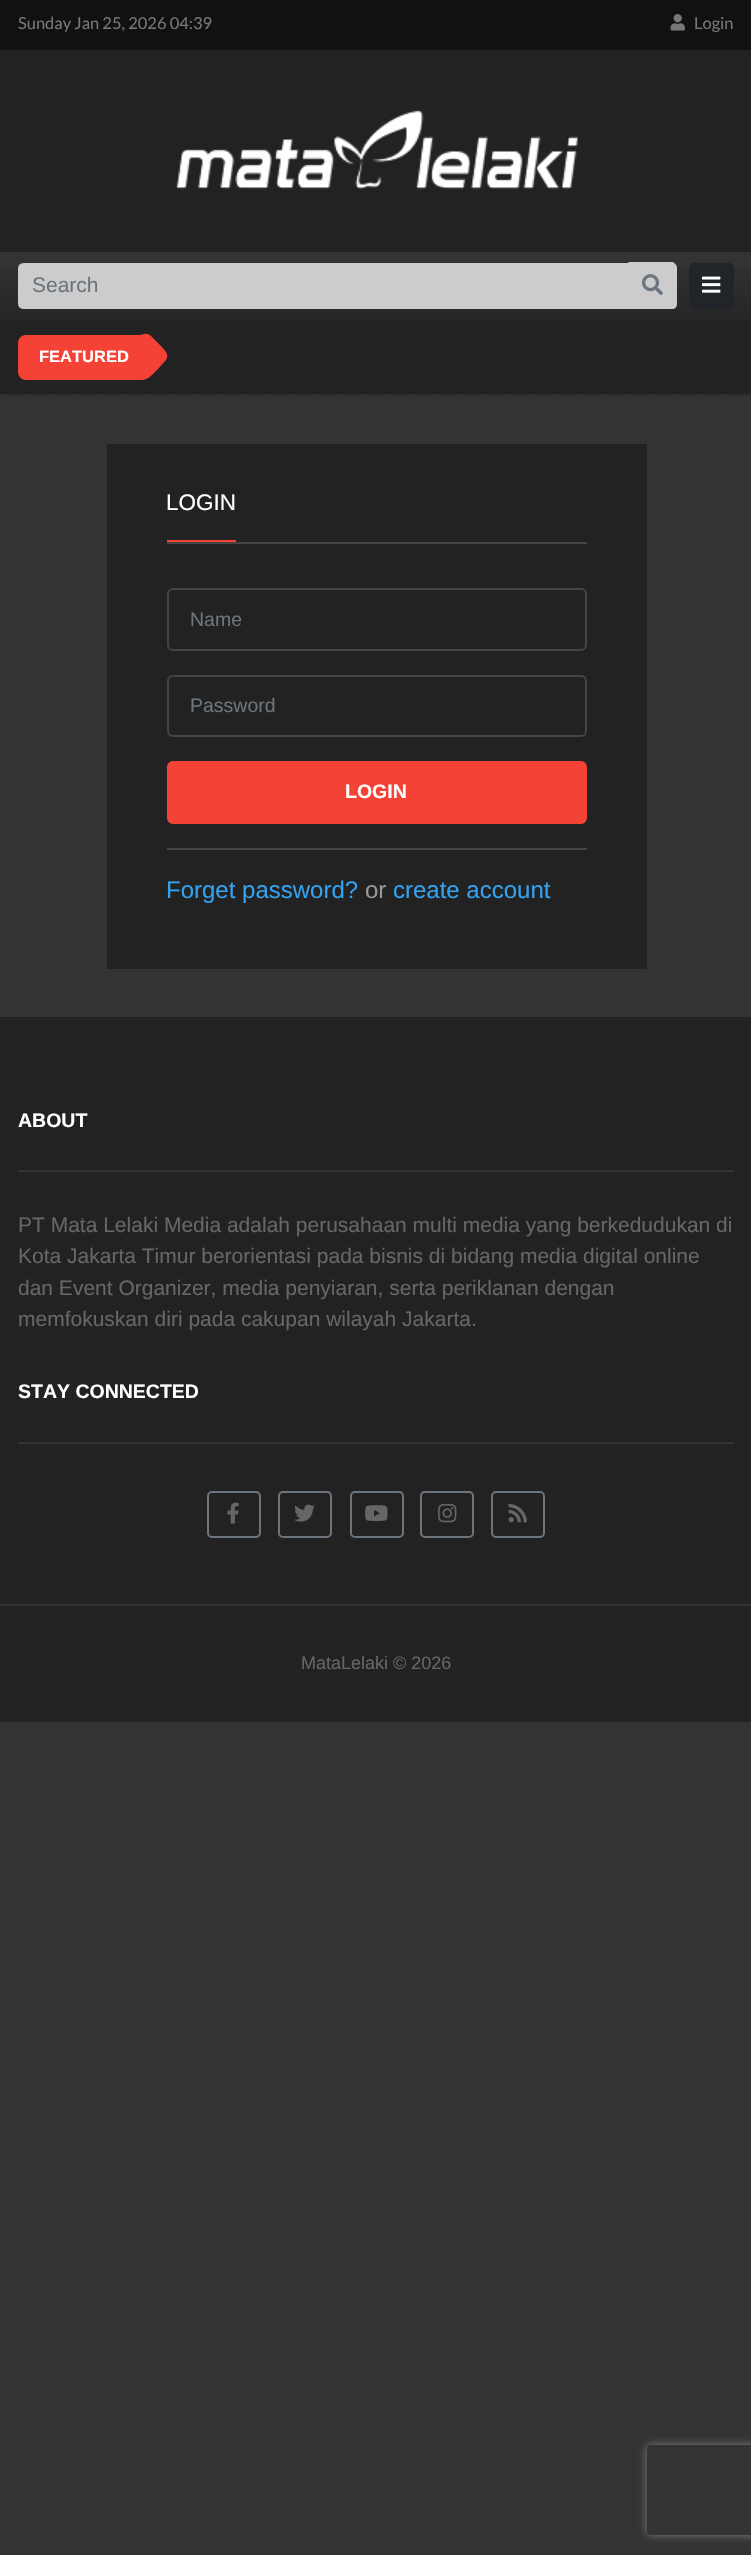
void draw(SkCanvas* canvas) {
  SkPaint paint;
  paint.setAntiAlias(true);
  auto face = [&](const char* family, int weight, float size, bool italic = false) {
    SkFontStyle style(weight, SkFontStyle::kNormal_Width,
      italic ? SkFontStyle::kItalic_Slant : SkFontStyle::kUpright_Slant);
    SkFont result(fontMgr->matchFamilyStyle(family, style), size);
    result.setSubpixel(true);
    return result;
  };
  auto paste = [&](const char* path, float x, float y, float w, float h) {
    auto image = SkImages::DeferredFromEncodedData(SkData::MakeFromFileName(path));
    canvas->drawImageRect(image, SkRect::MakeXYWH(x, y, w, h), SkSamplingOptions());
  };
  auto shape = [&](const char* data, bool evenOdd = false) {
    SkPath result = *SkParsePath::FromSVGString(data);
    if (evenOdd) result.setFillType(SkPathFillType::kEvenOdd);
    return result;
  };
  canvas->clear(0xff333333);
  paint.setColor(0xff111111);
  canvas->drawRect(SkRect::MakeXYWH(0, 0, 751, 50), paint);
  paste("img/1.png", 670, 14, 15, 17);
  paint.setColor(0xff222222);
  canvas->drawRect(SkRect::MakeXYWH(0, 50, 751, 202), paint);
  paste("img/2.png", 176, 110, 402, 80);
  {
    const SkColor colors[] = {0xff333333, 0xff262626};
    const float stops[] = {0.01f, 1};
    const SkPoint ends[] = {{376, 252}, {376, 320}};
    paint.setShader(SkGradientShader::MakeLinear(ends, colors, stops, 2, SkTileMode::kClamp));
    paint.setAlpha(255);
  }
  canvas->drawRect(SkRect::MakeXYWH(0, 266, 751, 54), paint);
  paint.setShader(nullptr);
  paint.setColor(0xffcccccc);
  canvas->drawPath(shape("M24 264H629V308H24C21 308 19 306 19 303V269C19 266 21 264 24 264Z"), paint);
  paint.setStroke(true);
  paint.setStrokeWidth(2);
  canvas->drawPath(shape("M24 264H629V308H24C21 308 19 306 19 303V269C19 266 21 264 24 264Z"), paint);
  paint.setStroke(false);
  canvas->drawPath(shape("M629 263H672C675 263 677 265 677 268V304C677 307 675 309 672 309H629Z"), paint);
  canvas->drawPath(shape("M630 264L628 262H673L675 264L674 265L672 264Z"), paint);
  canvas->drawPath(shape("M675 264L676 267V304C676 305 676 307 675 307H674C676 304 675 266 674 265ZM628 309H673L675 307H674L673 308H630Z"), paint);
  paste("img/3.png", 642, 274, 21, 22);
  paint.setColor(0xff212529);
  canvas->drawRoundRect(SkRect::MakeXYWH(690, 264, 43, 44), 4, 4, paint);
  paint.setStroke(true);
  canvas->drawRoundRect(SkRect::MakeXYWH(690, 264, 43, 44), 4, 4, paint);
  paste("img/4.png", 702, 276, 19, 17);
  paint.setStroke(false);
  paint.setColor(0xff222222);
  canvas->drawRect(SkRect::MakeXYWH(0, 320, 751, 76), paint);
  paint.setStroke(true);
  paint.setStrokeWidth(1.5f);
  paint.setColor(0xff424242);
  paint.setPathEffect(SkDashPathEffect::Make({{1.5f, 1.5f}}, 0));
  canvas->drawPath(shape("M0 395H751.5"), paint);
  paint.setPathEffect(nullptr);
  paint.setStroke(false);
  paint.setColor(0xfff44336);
  canvas->drawPath(shape("M151 336L161 346C164 350 170 354 166 360L158 369C145 382 146 382 133 369C125 361 118 358 128 348L140 336C143 333 148 333 151 336Z"), paint);
  canvas->drawRoundRect(SkRect::MakeXYWH(18, 335, 132, 45), 8, 8, paint);
  {
    const struct { float x, y, w, h; SkColor color; } items[] = {
      {107, 444, 540, 525, 0xff222222},
      {167, 542, 420, 2, 0xff454545},
      {167, 540, 69, 2, 0xfff44336},
    };
    for (auto [x, y, w, h, color] : items) {
      paint.setColor(color);
      canvas->drawRect(SkRect::MakeXYWH(x, y, w, h), paint);
    }
  }
  paint.setStroke(true);
  paint.setStrokeWidth(2);
  paint.setColor(0xff444444);
  canvas->drawRoundRect(SkRect::MakeXYWH(168, 589, 418, 61), 5, 5, paint);
  canvas->drawRoundRect(SkRect::MakeXYWH(168, 676, 418, 60), 5, 5, paint);
  paint.setStroke(false);
  paint.setColor(0xfff44336);
  canvas->drawRoundRect(SkRect::MakeXYWH(168, 762, 418, 61), 5, 5, paint);
  paint.setStroke(true);
  canvas->drawRoundRect(SkRect::MakeXYWH(168, 762, 418, 61), 5, 5, paint);
  paint.setStroke(false);
  {
    const struct { float x, y, w, h; SkColor color; } items[] = {
      {167, 848, 420, 2, 0xff454545},
      {0, 1017, 751, 587, 0xff222222},
      {18, 1170, 716, 2, 0xff333333},
      {18, 1442, 716, 2, 0xff333333},
    };
    for (auto [x, y, w, h, color] : items) {
      paint.setColor(color);
      canvas->drawRect(SkRect::MakeXYWH(x, y, w, h), paint);
    }
  }
  paint.setStroke(true);
  paint.setColor(0xff6c757d);
  canvas->drawRoundRect(SkRect::MakeXYWH(208, 1492, 52, 45), 4, 4, paint);
  paste("img/5.png", 227, 1502, 12, 22);
  canvas->drawRoundRect(SkRect::MakeXYWH(279, 1492, 52, 45), 4, 4, paint);
  paste("img/6.png", 294, 1504, 21, 18);
  canvas->drawRoundRect(SkRect::MakeXYWH(351, 1492, 52, 45), 4, 4, paint);
  paste("img/7.png", 365, 1505, 23, 16);
  canvas->drawRoundRect(SkRect::MakeXYWH(421, 1492, 52, 45), 4, 4, paint);
  paste("img/8.png", 438, 1503, 19, 20);
  canvas->drawRoundRect(SkRect::MakeXYWH(492, 1492, 52, 45), 4, 4, paint);
  paste("img/9.png", 508, 1504, 19, 19);
  paint.setStroke(false);
  paint.setColor(0xff222222);
  canvas->drawRect(SkRect::MakeXYWH(0, 1606, 751, 116), paint);
  canvas->save();
  canvas->clipPath(shape("M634 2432H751V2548H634ZM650 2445H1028C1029.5 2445 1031 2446.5 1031 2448V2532C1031 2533.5 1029.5 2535 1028 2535H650C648.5 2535 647 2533.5 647 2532V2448C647 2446.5 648.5 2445 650 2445Z", true), true);
  paint.setColor(0xff808080);
  paint.setMaskFilter(SkMaskFilter::MakeBlur(kNormal_SkBlurStyle, 4));
  canvas->drawRoundRect(SkRect::MakeXYWH(647, 2445, 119, 90), 3, 3, paint);
  paint.setMaskFilter(nullptr);
  canvas->restore();
  auto f0 = face("Lato", 400, 16.5f);
  paint.setColor(0xff777777);
  canvas->drawString("Sunday Jan 25, 2026 04:39", 18, 29, f0, paint);
  canvas->drawString("Login", 694, 29, f0, paint);
  auto f1 = face("Liberation Sans", 400, 21);
  paint.setColor(0xff6c757d);
  canvas->drawString("Search", 32, 292, f1, paint);
  auto f2 = face("Liberation Sans", 700, 16.5f);
  paint.setColor(0xffffffff);
  canvas->drawString("FEATURED", 39, 362, f2, paint);
  auto f3 = face("Liberation Sans", 400, 22.5f);
  canvas->drawString("LOGIN", 166, 510, f3, paint);
  auto f4 = face("Liberation Sans", 400, 19.5f);
  paint.setColor(0xff6c757d);
  canvas->drawString("Name", 190, 626, f4, paint);
  canvas->drawString("Password", 190, 712, f4, paint);
  auto f5 = face("Liberation Sans", 700, 19.5f);
  paint.setColor(0xffffffff);
  canvas->drawString("LOGIN", 345, 798, f5, paint);
  auto f6 = face("Liberation Sans", 400, 24);
  paint.setColor(0xff33a3f1);
  canvas->drawString("Forget password?", 166, 898, f6, paint);
  paint.setColor(0xff999999);
  canvas->drawString("or", 365, 898, f6, paint);
  paint.setColor(0xff33a3f1);
  canvas->drawString("create account", 393, 898, f6, paint);
  paint.setColor(0xffffffff);
  canvas->drawString("ABOUT", 18, 1127, f5, paint);
  paint.setColor(0xff666666);
  {
    const struct { const char* s; float x, y; } items[] = {
      {"PT Mata Lelaki Media adalah perusahaan multi media yang berkedudukan di", 18, 1232},
      {"Kota Jakarta Timur berorientasi pada bisnis di bidang media digital online", 18, 1263},
      {"dan Event Organizer, media penyiaran, serta periklanan dengan", 18, 1295},
      {"memfokuskan diri pada cakupan wilayah Jakarta.", 18, 1326},
    };
    for (auto [s, x, y] : items) {
      canvas->drawString(s, x, y, f1, paint);
    }
  }
  paint.setColor(0xffffffff);
  canvas->drawString("STAY CONNECTED", 18, 1398, f5, paint);
  auto f7 = face("Liberation Sans", 400, 18);
  paint.setColor(0xff666666);
  canvas->drawString("MataLelaki © 2026", 301, 1669, f7, paint);
}
